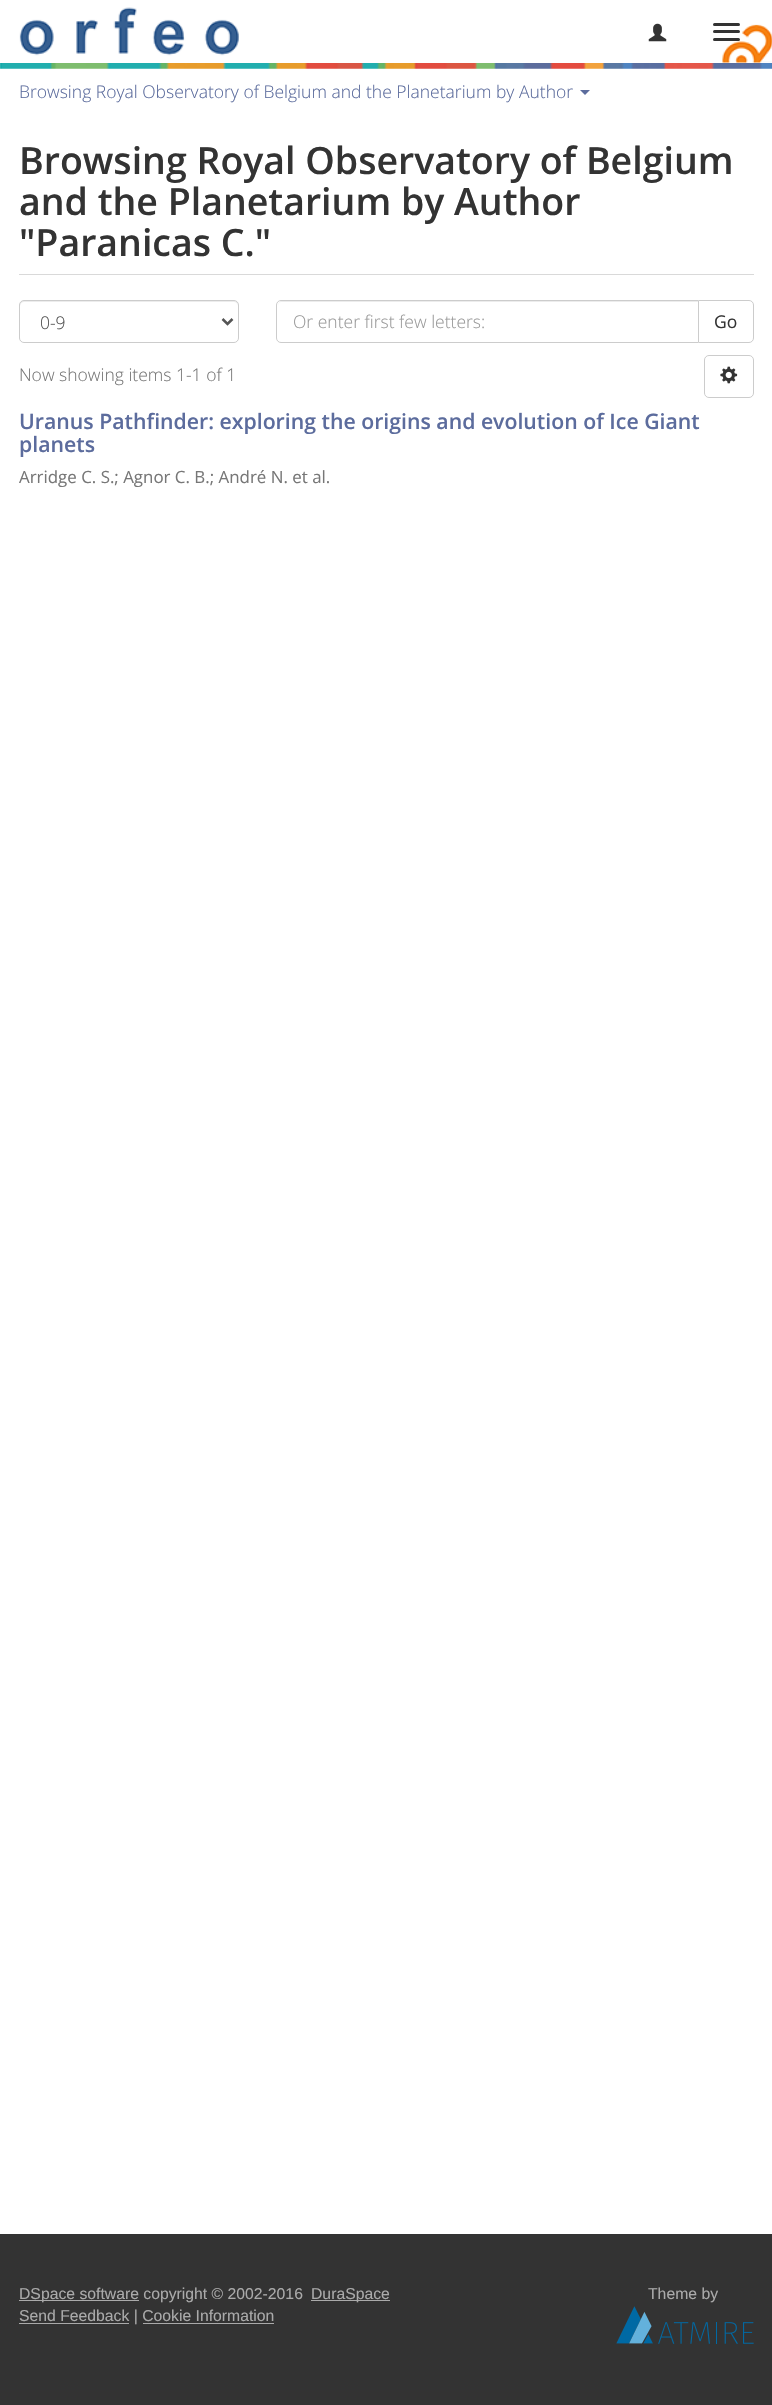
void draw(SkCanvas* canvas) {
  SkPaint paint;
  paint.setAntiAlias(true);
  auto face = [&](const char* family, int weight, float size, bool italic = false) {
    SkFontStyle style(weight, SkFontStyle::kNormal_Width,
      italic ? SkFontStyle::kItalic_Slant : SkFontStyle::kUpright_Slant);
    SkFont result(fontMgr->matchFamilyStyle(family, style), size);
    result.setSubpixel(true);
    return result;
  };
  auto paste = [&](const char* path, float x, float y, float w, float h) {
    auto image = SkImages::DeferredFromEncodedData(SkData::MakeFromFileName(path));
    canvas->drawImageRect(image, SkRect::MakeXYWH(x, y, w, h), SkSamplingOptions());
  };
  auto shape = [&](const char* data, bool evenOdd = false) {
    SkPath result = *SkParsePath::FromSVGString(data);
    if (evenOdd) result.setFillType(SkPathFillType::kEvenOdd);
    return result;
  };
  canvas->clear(0xffffffff);
  paste("img/1.png", 722, 24, 50, 39);
  paste("img/2.png", 19, 7, 220, 49);
  paste("img/3.png", 648, 23, 19, 19);
  paint.setColor(0xff333333);
  canvas->drawRoundRect(SkRect::MakeXYWH(713, 23, 27, 3), 1.5f, 1.5f, paint);
  canvas->drawRoundRect(SkRect::MakeXYWH(713, 30, 27, 3), 1.5f, 1.5f, paint);
  canvas->drawRoundRect(SkRect::MakeXYWH(713, 38, 27, 3), 1.5f, 1.5f, paint);
  paste("img/4.png", 0, 63, 772, 6);
  paint.setColor(0xff5c6c9d);
  canvas->drawPath(shape("M580 90H590L585 95Z"), paint);
  paint.setColor(0xffd9d9d9);
  canvas->drawRect(SkRect::MakeXYWH(19, 274, 735, 1), paint);
  paint.setColor(0xffececec);
  canvas->drawPath(shape("M24 302H234C236 302 238 304 238 306C238 303 237 301 234 301H22C20 302 20 304 20 306C20 304 22 302 24 302Z"), paint);
  paint.setStroke(true);
  paint.setStrokeWidth(1);
  paint.setColor(0xffcccccc);
  canvas->drawRoundRect(SkRect::MakeXYWH(19.5f, 300.5f, 219, 42), 4.5f, 4.5f, paint);
  paint.setStrokeWidth(2.5f);
  paint.setColor(0xff555555);
  canvas->drawPath(shape("M222.5 319L227.5 324L232.5 319"), paint);
  paint.setStrokeWidth(1);
  paint.setColor(0xffcccccc);
  canvas->drawPath(shape("M698.5 300.5H749C751.5 300.5 753.5 302.5 753.5 305V338C753.5 340.5 751.5 342.5 749 342.5H698.5Z"), paint);
  paint.setStroke(false);
  paint.setColor(0xffffffff);
  canvas->drawPath(shape("M281 300H699V343H281C278 343 276 341 276 338V305C276 302 278 300 281 300Z"), paint);
  paint.setColor(0xffececec);
  canvas->drawPath(shape("M281 302H698V301H282C280 301 278 303 278 305V306C278 304 279 302 281 302Z"), paint);
  paint.setStroke(true);
  paint.setColor(0xffcccccc);
  canvas->drawPath(shape("M281 300.5H698.5V342.5H281C278.5 342.5 276.5 340.5 276.5 338V305C276.5 302.5 278.5 300.5 281 300.5Z"), paint);
  canvas->drawRoundRect(SkRect::MakeXYWH(704.5f, 355.5f, 49, 42), 4.5f, 4.5f, paint);
  paste("img/5.png", 720, 366, 18, 18);
  paint.setStroke(false);
  {
    const struct { float x, y, w, h; SkColor color; } items[] = {
      {0, 2234, 772, 171, 0xff333333},
      {19, 2300, 120, 1, 0xffaaaaaa},
      {311, 2300, 79, 1, 0xffaaaaaa},
      {19, 2323, 110, 1, 0xffaaaaaa},
      {143, 2323, 131, 1, 0xffaaaaaa},
    };
    for (auto [x, y, w, h, color] : items) {
      paint.setColor(color);
      canvas->drawRect(SkRect::MakeXYWH(x, y, w, h), paint);
    }
  }
  paste("img/6.png", 616, 2306, 138, 38);
  auto f0 = face("Open Sans", 300, 17.5f);
  paint.setColor(0xff5c6c9d);
  canvas->drawString("Browsing Royal Observatory of Belgium and the Planetarium by Author", 19, 98, f0, paint);
  auto f1 = face("Open Sans", 600, 37.5f);
  paint.setColor(0xff333333);
  {
    const struct { const char* s; float x, y; } items[] = {
      {"Browsing Royal Observatory of Belgium", 19, 174},
      {"and the Planetarium by Author", 19, 215},
      {"\"Paranicas C.\"", 19, 256},
    };
    for (auto [s, x, y] : items) {
      canvas->drawString(s, x, y, f1, paint);
    }
  }
  paint.setColor(0xff555555);
  canvas->drawString("0-9", 40, 329, f0, paint);
  paint.setColor(0xff999999);
  canvas->drawString("Or enter first few letters:", 293, 328, f0, paint);
  auto f2 = face("Open Sans", 400, 17.5f);
  paint.setColor(0xff333333);
  canvas->drawString("Go", 714, 328, f2, paint);
  paint.setColor(0xff777777);
  canvas->drawString("Now showing items 1-1 of 1", 19, 381, f0, paint);
  auto f3 = face("Open Sans", 600, 21.25f);
  paint.setColor(0xff5c6c9d);
  canvas->drawString("Uranus Pathfinder: exploring the origins and evolution of Ice Giant", 19, 429, f3, paint);
  canvas->drawString("planets", 19, 452, f3, paint);
  auto f4 = face("Open Sans", 400, 16.9f);
  paint.setColor(0xff777777);
  canvas->drawString("Arridge C. S.; Agnor C. B.; André N. et al.", 19, 483, f4, paint);
  auto f5 = face("Liberation Sans", 400, 15.75f);
  paint.setColor(0xffaaaaaa);
  {
    const struct { const char* s; float x, y; } items[] = {
      {"DSpace software copyright © 2002-2016", 19, 2299},
      {"DuraSpace", 311, 2299},
      {"Send Feedback | Cookie Information", 19, 2321},
      {"Theme by", 648, 2299},
    };
    for (auto [s, x, y] : items) {
      canvas->drawString(s, x, y, f5, paint);
    }
  }
}
